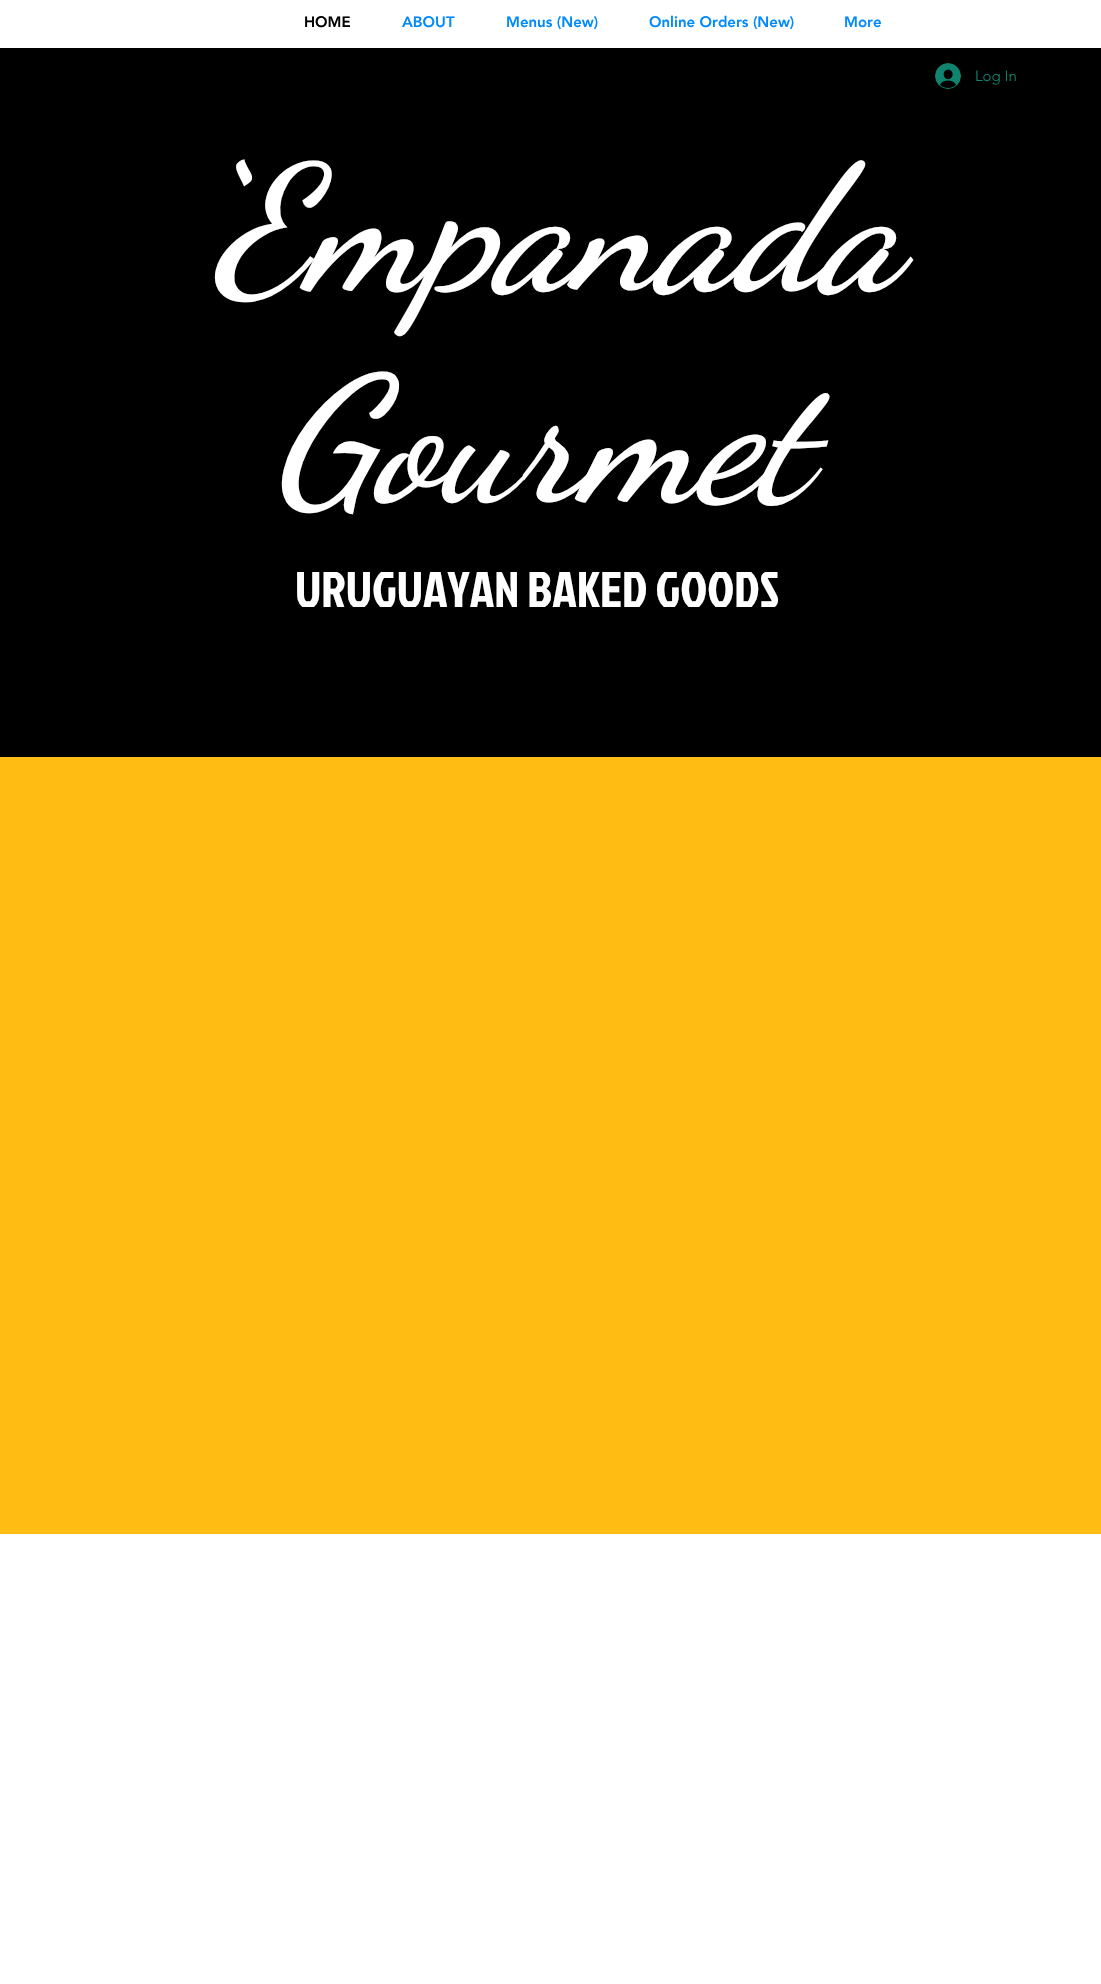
void draw(SkCanvas* canvas) {
  SkPaint paint;
  paint.setAntiAlias(true);
  auto face = [&](const char* family, int weight, float size, bool italic = false) {
    SkFontStyle style(weight, SkFontStyle::kNormal_Width,
      italic ? SkFontStyle::kItalic_Slant : SkFontStyle::kUpright_Slant);
    SkFont result(fontMgr->matchFamilyStyle(family, style), size);
    result.setSubpixel(true);
    return result;
  };
  auto paste = [&](const char* path, float x, float y, float w, float h) {
    auto image = SkImages::DeferredFromEncodedData(SkData::MakeFromFileName(path));
    canvas->drawImageRect(image, SkRect::MakeXYWH(x, y, w, h), SkSamplingOptions());
  };
  canvas->clear(0xffffffff);
  paint.setColor(0xff000000);
  canvas->drawRect(SkRect::MakeXYWH(0, 48, 1101, 709), paint);
  paste("img/1.png", 935, 63, 26, 26);
  paint.setColor(0xffffbd14);
  canvas->drawRect(SkRect::MakeXYWH(0, 757, 1101, 777), paint);
  auto f0 = face("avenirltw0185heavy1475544", 900, 15);
  paint.setColor(0xff000000);
  canvas->drawString("HOME", 304, 27, f0, paint);
  paint.setColor(0xff008afc);
  {
    const struct { const char* s; float x, y; } items[] = {
      {"ABOUT", 402, 27},
      {"Menus (New)", 506, 27},
      {"Online Orders (New)", 649, 27},
      {"More", 844, 27},
    };
    for (auto [s, x, y] : items) {
      canvas->drawString(s, x, y, f0, paint);
    }
  }
  auto f1 = face("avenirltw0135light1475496", 300, 15);
  paint.setColor(0xff10846f);
  canvas->drawString("Log In", 975, 81, f1, paint);
  auto f2 = face("Dancing Script", 700, 176, true);
  paint.setColor(0xffffffff);
  canvas->drawString("‘Empanada", 180, 287, f2, paint);
  canvas->drawString("Gourmet", 271, 498, f2, paint);
  auto f3 = face("Jockey One", 400, 50);
  canvas->drawString("URUGUAYAN BAKED GOODS", 295, 607, f3, paint);
}
